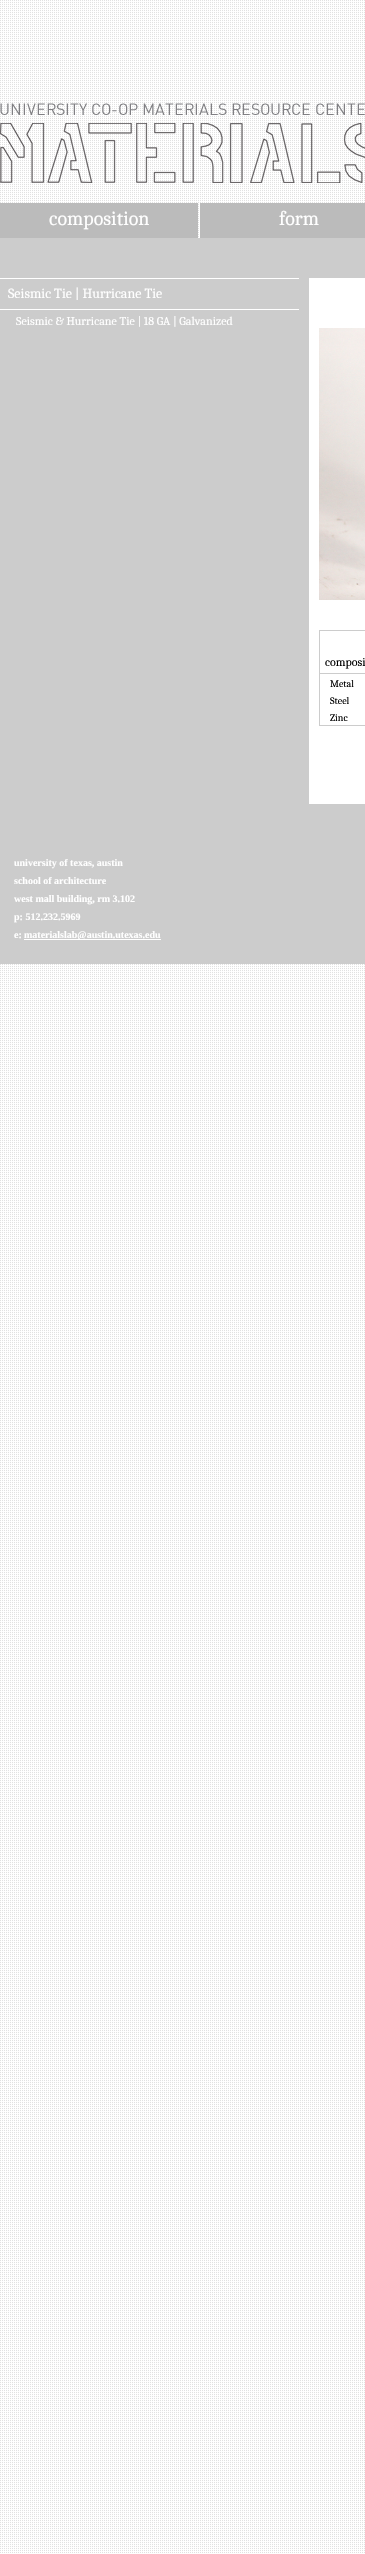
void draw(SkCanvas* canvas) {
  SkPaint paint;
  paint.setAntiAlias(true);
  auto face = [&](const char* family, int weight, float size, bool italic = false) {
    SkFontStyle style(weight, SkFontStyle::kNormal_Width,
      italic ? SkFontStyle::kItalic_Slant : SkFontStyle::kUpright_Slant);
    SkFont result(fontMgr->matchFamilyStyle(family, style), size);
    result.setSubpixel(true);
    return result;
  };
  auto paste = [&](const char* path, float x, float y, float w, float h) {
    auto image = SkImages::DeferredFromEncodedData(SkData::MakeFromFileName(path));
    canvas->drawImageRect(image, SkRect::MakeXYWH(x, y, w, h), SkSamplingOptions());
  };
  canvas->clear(0xffffffff);
  paste("img/1.png", 0, 0, 365, 2553);
  paste("img/2.png", 0, 103, 365, 80);
  {
    const struct { float x, y, w, h; SkColor color; } items[] = {
      {0, 203, 198, 35, 0xffbbbbbb},
      {200, 203, 165, 35, 0xffbbbbbb},
      {0, 238, 365, 726, 0xffcccccc},
      {0, 278, 299, 1, 0xffffffff},
      {0, 309, 299, 1, 0xffffffff},
      {309, 278, 56, 526, 0xffffffff},
    };
    for (auto [x, y, w, h, color] : items) {
      paint.setColor(color);
      canvas->drawRect(SkRect::MakeXYWH(x, y, w, h), paint);
    }
  }
  paste("img/3.png", 319, 328, 46, 272);
  paint.setStroke(true);
  paint.setStrokeWidth(1);
  paint.setColor(0xffcccccc);
  canvas->drawRect(SkRect::MakeXYWH(319.5f, 630.5f, 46, 95), paint);
  paint.setStroke(false);
  canvas->drawRect(SkRect::MakeXYWH(320, 673, 45, 1), paint);
  paint.setColor(0xffffffff);
  canvas->drawRect(SkRect::MakeXYWH(24, 939, 137, 1), paint);
  auto f0 = face("Caladea", 400, 20);
  canvas->drawString("composition", 49, 225, f0, paint);
  canvas->drawString("form", 279, 225, f0, paint);
  auto f1 = face("Caladea", 400, 14);
  canvas->drawString("Seismic Tie | Hurricane Tie", 8, 298, f1, paint);
  auto f2 = face("Caladea", 400, 12);
  canvas->drawString("Seismic & Hurricane Tie | 18 GA | Galvanized", 16, 325, f2, paint);
  paint.setColor(0xff000000);
  canvas->drawString("composi", 325, 666, f2, paint);
  auto f3 = face("Caladea", 400, 10);
  {
    const struct { const char* s; float x, y; } items[] = {
      {"Metal", 330, 687},
      {"Steel", 330, 704},
      {"Zinc", 330, 721},
    };
    for (auto [s, x, y] : items) {
      canvas->drawString(s, x, y, f3, paint);
    }
  }
  auto f4 = face("Liberation Serif", 700, 10);
  paint.setColor(0xffffffff);
  {
    const struct { const char* s; float x, y; } items[] = {
      {"university of texas, austin", 14, 866},
      {"school of architecture", 14, 884},
      {"west mall building, rm 3.102", 14, 902},
      {"p: 512.232.5969", 14, 920},
      {"e:", 14, 938},
      {"materialslab@austin.utexas.edu", 24, 938},
    };
    for (auto [s, x, y] : items) {
      canvas->drawString(s, x, y, f4, paint);
    }
  }
}
